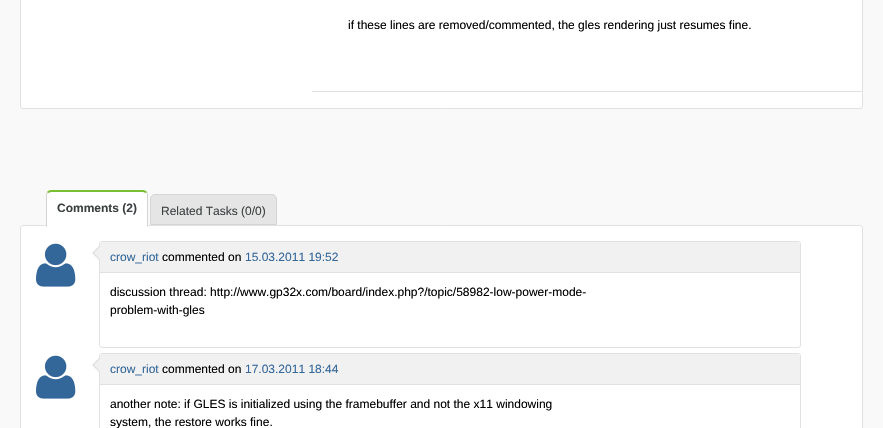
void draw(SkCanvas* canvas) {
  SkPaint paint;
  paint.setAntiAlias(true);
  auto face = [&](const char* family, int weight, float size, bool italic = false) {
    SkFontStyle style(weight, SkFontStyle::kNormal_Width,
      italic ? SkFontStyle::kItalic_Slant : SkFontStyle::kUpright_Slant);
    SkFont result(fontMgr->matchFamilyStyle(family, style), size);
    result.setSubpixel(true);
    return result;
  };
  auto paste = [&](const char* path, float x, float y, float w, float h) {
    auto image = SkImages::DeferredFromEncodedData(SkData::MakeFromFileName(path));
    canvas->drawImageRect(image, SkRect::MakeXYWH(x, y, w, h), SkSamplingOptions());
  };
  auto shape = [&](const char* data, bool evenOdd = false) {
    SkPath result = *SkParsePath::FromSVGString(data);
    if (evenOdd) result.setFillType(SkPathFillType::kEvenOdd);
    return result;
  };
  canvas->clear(0xfff9f9f9);
  paint.setColor(0xffffffff);
  canvas->drawRoundRect(SkRect::MakeXYWH(20.5f, -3.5f, 842, 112), 2.5f, 2.5f, paint);
  paint.setStroke(true);
  paint.setStrokeWidth(1);
  paint.setColor(0xffe1e1e1);
  canvas->drawRoundRect(SkRect::MakeXYWH(20.5f, -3.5f, 842, 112), 2.5f, 2.5f, paint);
  paint.setStroke(false);
  canvas->drawRect(SkRect::MakeXYWH(312, 91, 550, 1), paint);
  paint.setColor(0xffffffff);
  canvas->drawRoundRect(SkRect::MakeXYWH(20.5f, 225.5f, 842, 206), 2.5f, 2.5f, paint);
  paint.setStroke(true);
  paint.setColor(0xffe1e1e1);
  canvas->drawRoundRect(SkRect::MakeXYWH(20.5f, 225.5f, 842, 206), 2.5f, 2.5f, paint);
  paint.setStroke(false);
  paint.setColor(0xffffffff);
  canvas->drawPath(shape("M51 192H143C145 192 147 193 147 195V226H47V195C47 193 49 192 51 192Z"), paint);
  paint.setColor(0xff78bf34);
  canvas->drawPath(shape("M51 190C49 190 48 191 47 192L48 193L51 192H143L146 193L147 192C146 191 145 190 143 190Z"), paint);
  paint.setColor(0xffd4d4d4);
  canvas->drawPath(shape("M148 227V195C148 194 147.5 192.5 147 192L146.5 193.5C147 193.5 147 194.5 147 195V226Z"), paint);
  paint.setColor(0xffffffff);
  canvas->drawPath(shape("M148 227L147 226H47L46 227Z"), paint);
  paint.setColor(0xffd4d4d4);
  canvas->drawPath(shape("M46 227L47 226V195C47 194.5 47 193.5 47.5 193.5L47 192C46.5 192.5 46 194 46 195Z"), paint);
  paint.setColor(0xffe5e5e5);
  canvas->drawPath(shape("M155 194.5H272C274.5 194.5 276.5 196.5 276.5 199V224.5H150.5V199C150.5 196.5 152.5 194.5 155 194.5Z"), paint);
  paint.setStroke(true);
  paint.setColor(0xffd4d4d4);
  canvas->drawPath(shape("M155 194.5H272C274.5 194.5 276.5 196.5 276.5 199V224.5H150.5V199C150.5 196.5 152.5 194.5 155 194.5Z"), paint);
  paste("img/1.png", 36, 243, 40, 44);
  paint.setColor(0xffe1e1e1);
  canvas->drawRoundRect(SkRect::MakeXYWH(99.5f, 241.5f, 701, 106), 2.5f, 2.5f, paint);
  paint.setStroke(false);
  canvas->drawPath(shape("M100 245V261L92 253Z"), paint);
  paint.setColor(0xfff1f1f1);
  canvas->drawPath(shape("M100 247V259L94 253Z"), paint);
  canvas->drawRect(SkRect::MakeXYWH(100, 242, 700, 30), paint);
  paint.setColor(0xffe1e1e1);
  canvas->drawRect(SkRect::MakeXYWH(100, 272, 700, 1), paint);
  paste("img/1.png", 36, 355, 40, 44);
  paint.setStroke(true);
  canvas->drawRoundRect(SkRect::MakeXYWH(99.5f, 353.5f, 701, 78), 2.5f, 2.5f, paint);
  paint.setStroke(false);
  canvas->drawPath(shape("M100 357V373L92 365Z"), paint);
  paint.setColor(0xfff1f1f1);
  canvas->drawPath(shape("M100 359V371L94 365Z"), paint);
  canvas->drawRect(SkRect::MakeXYWH(100, 354, 700, 30), paint);
  paint.setColor(0xffe1e1e1);
  canvas->drawRect(SkRect::MakeXYWH(100, 384, 700, 1), paint);
  auto f0 = face("Liberation Sans", 400, 12);
  paint.setColor(0xff000000);
  canvas->drawString("if these lines are removed/commented, the gles rendering just resumes fine.", 348, 29, f0, paint);
  auto f1 = face("Liberation Sans", 700, 12);
  paint.setColor(0xff3c4041);
  canvas->drawString("Comments (2)", 57, 212, f1, paint);
  canvas->drawString("Related Tasks (0/0)", 161, 215, f0, paint);
  paint.setColor(0xff336699);
  canvas->drawString("crow_riot", 110, 261, f0, paint);
  paint.setColor(0xff000000);
  canvas->drawString("commented on", 162, 261, f0, paint);
  paint.setColor(0xff336699);
  canvas->drawString("15.03.2011 19:52", 245, 261, f0, paint);
  paint.setColor(0xff000000);
  canvas->drawString("discussion thread: http://www.gp32x.com/board/index.php?/topic/58982-low-power-mode-", 110, 296, f0, paint);
  canvas->drawString("problem-with-gles", 110, 314, f0, paint);
  paint.setColor(0xff336699);
  canvas->drawString("crow_riot", 110, 373, f0, paint);
  paint.setColor(0xff000000);
  canvas->drawString("commented on", 162, 373, f0, paint);
  paint.setColor(0xff336699);
  canvas->drawString("17.03.2011 18:44", 245, 373, f0, paint);
  paint.setColor(0xff000000);
  canvas->drawString("another note: if GLES is initialized using the framebuffer and not the x11 windowing", 110, 408, f0, paint);
  canvas->drawString("system, the restore works fine.", 110, 426, f0, paint);
}
